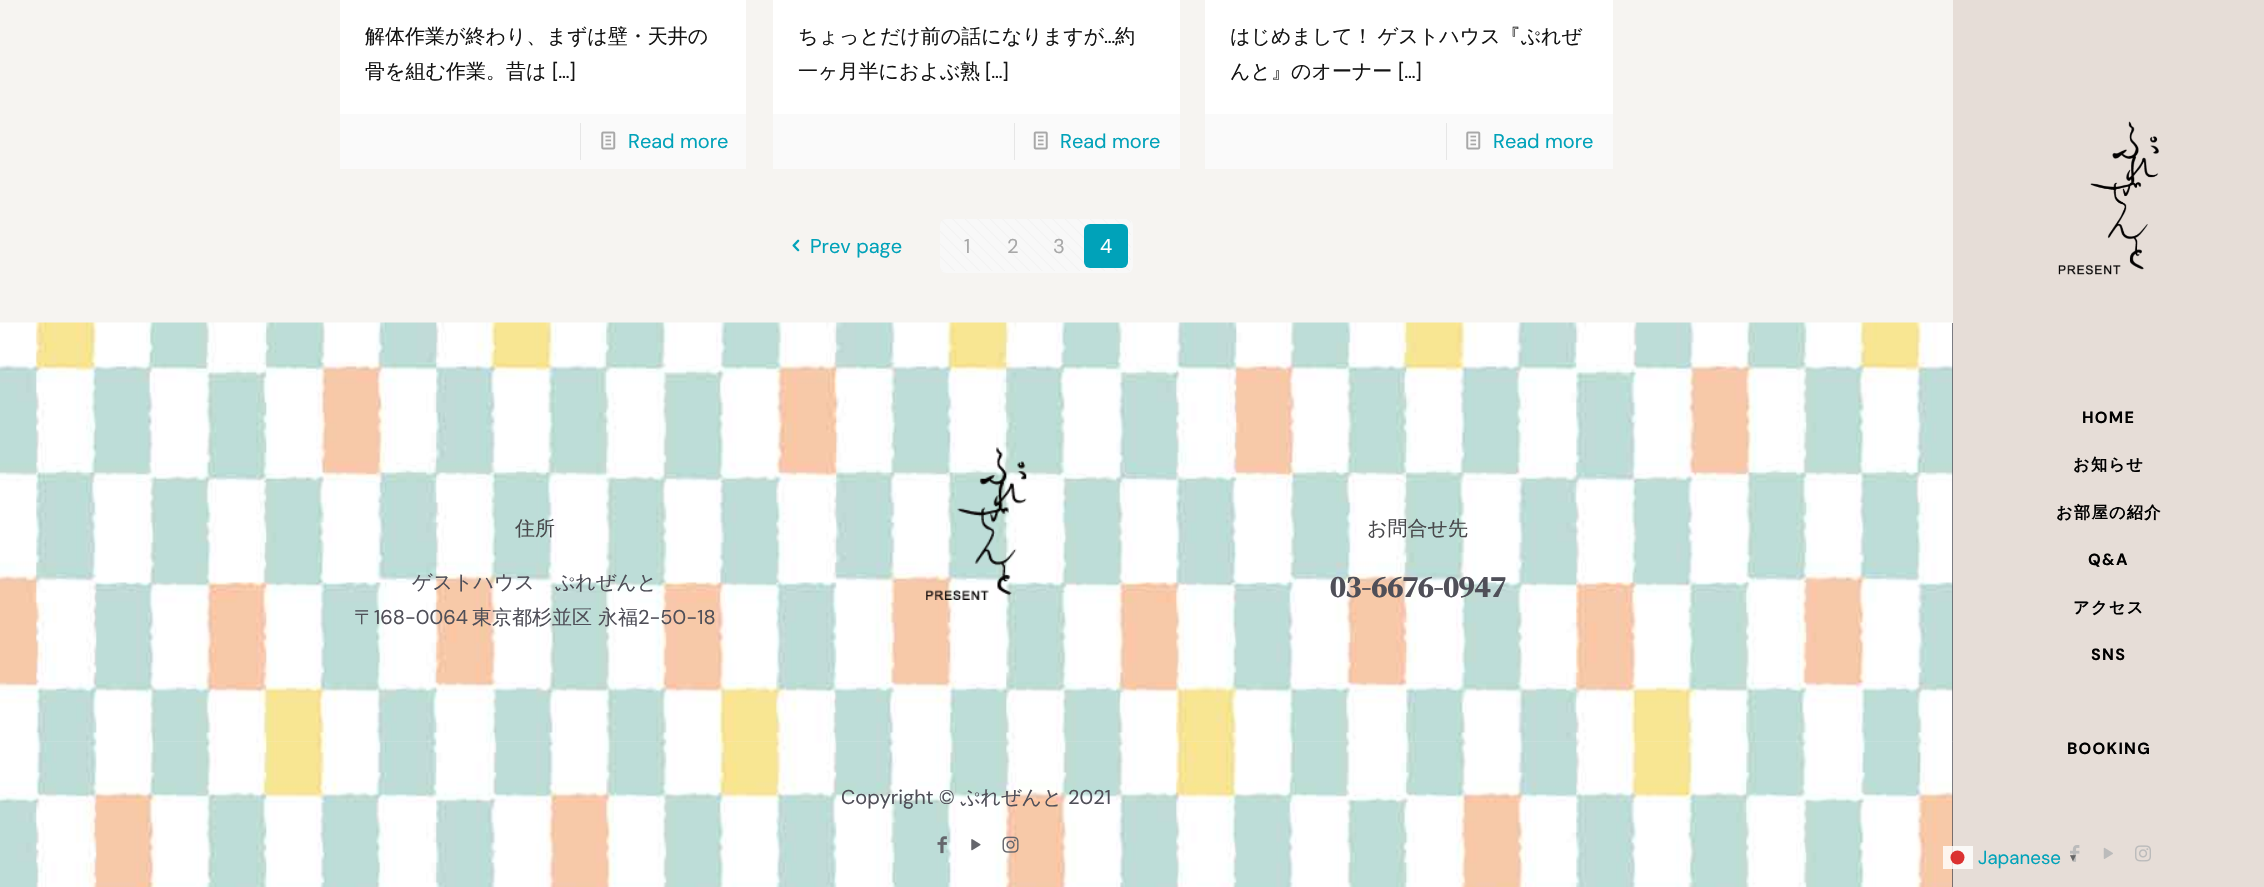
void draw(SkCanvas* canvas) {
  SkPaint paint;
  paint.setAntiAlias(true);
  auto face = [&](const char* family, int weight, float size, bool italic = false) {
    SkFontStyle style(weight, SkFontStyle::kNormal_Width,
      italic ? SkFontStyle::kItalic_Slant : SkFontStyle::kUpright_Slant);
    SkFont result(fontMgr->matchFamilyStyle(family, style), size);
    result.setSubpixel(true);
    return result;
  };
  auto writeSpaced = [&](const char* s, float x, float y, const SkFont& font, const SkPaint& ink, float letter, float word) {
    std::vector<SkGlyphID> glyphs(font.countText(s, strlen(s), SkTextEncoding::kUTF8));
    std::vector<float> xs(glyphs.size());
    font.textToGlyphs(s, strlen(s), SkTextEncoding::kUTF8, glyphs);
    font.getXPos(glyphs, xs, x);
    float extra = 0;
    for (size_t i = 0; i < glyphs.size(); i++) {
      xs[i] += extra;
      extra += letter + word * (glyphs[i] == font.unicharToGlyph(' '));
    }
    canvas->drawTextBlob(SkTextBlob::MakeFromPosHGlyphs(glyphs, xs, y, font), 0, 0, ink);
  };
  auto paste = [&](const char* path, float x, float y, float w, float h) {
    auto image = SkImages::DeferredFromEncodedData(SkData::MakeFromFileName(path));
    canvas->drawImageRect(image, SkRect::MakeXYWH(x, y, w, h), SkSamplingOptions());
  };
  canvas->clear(0xfff6f4f1);
  {
    const struct { float x, y, w, h; SkColor color; } items[] = {
      {340, 0, 406, 114, 0xffffffff},
      {340, 114, 406, 55, 0xfffafafa},
      {580, 123, 1, 37, 0xffe6e6e6},
    };
    for (auto [x, y, w, h, color] : items) {
      paint.setColor(color);
      canvas->drawRect(SkRect::MakeXYWH(x, y, w, h), paint);
    }
  }
  paste("img/1.png", 601, 131, 15, 19);
  {
    const struct { float x, y, w, h; SkColor color; } items[] = {
      {773, 0, 407, 114, 0xffffffff},
      {773, 114, 407, 55, 0xfffafafa},
      {1014, 123, 1, 37, 0xffe6e6e6},
    };
    for (auto [x, y, w, h, color] : items) {
      paint.setColor(color);
      canvas->drawRect(SkRect::MakeXYWH(x, y, w, h), paint);
    }
  }
  paste("img/2.png", 1033, 131, 15, 19);
  {
    const struct { float x, y, w, h; SkColor color; } items[] = {
      {1205, 0, 408, 114, 0xffffffff},
      {1205, 114, 408, 55, 0xfffafafa},
      {1446, 123, 1, 37, 0xffe6e6e6},
    };
    for (auto [x, y, w, h, color] : items) {
      paint.setColor(color);
      canvas->drawRect(SkRect::MakeXYWH(x, y, w, h), paint);
    }
  }
  paste("img/1.png", 1466, 131, 15, 19);
  paste("img/3.png", 792, 239, 8, 13);
  paint.setColor(0xfff8f8f8);
  canvas->drawRoundRect(SkRect::MakeXYWH(940, 219, 193, 54), 6, 6, paint);
  paste("img/4.png", 940, 219, 191, 52);
  paint.setColor(0xff00a2b9);
  canvas->drawRoundRect(SkRect::MakeXYWH(1084, 224, 44, 44), 6, 6, paint);
  paint.setColor(0xff4f4f58);
  canvas->drawRect(SkRect::MakeXYWH(1952, 323, 1, 564), paint);
  paste("img/5.png", 0, 322, 1953, 565);
  paste("img/6.png", 926, 447, 101, 153);
  paint.setColor(0x1affffff);
  canvas->drawRect(SkRect::MakeXYWH(39, 741, 1914, 1), paint);
  paste("img/7.png", 937, 836, 10, 18);
  paste("img/8.png", 971, 839, 10, 12);
  paste("img/9.png", 1002, 836, 17, 17);
  paint.setColor(0xffe6ddd7);
  canvas->drawRect(SkRect::MakeXYWH(1953, 0, 311, 887), paint);
  paste("img/10.png", 2058, 121, 102, 154);
  paste("img/11.png", 2070, 845, 10, 17);
  paste("img/12.png", 2103, 847, 10, 12);
  paste("img/13.png", 2135, 845, 16, 17);
  paint.setColor(0xccffffff);
  canvas->drawRect(SkRect::MakeXYWH(1943, 846, 30, 23), paint);
  paint.setColor(0xccd30000);
  canvas->drawCircle(1957.5f, 857.5f, 7, paint);
  auto f0 = face("WenQuanYi Zen Hei", 500, 20);
  paint.setColor(0xff141414);
  canvas->drawString("解体作業が終わり、まずは壁・天井の", 365, 43, f0, paint);
  canvas->drawString("骨を組む作業。昔は", 365, 78, f0, paint);
  auto f1 = face("DM Sans", 400, 20);
  canvas->drawString("[…]", 552, 78, f1, paint);
  paint.setColor(0xff00a2b9);
  canvas->drawString("Read more", 628, 148, f1, paint);
  paint.setColor(0xff141414);
  canvas->drawString("ちょっとだけ前の話になりますが", 798, 43, f0, paint);
  canvas->drawString("…", 1104, 43, f1, paint);
  canvas->drawString("約", 1115, 43, f0, paint);
  canvas->drawString("一ヶ月半におよぶ熟", 798, 78, f0, paint);
  canvas->drawString("[…]", 985, 78, f1, paint);
  paint.setColor(0xff00a2b9);
  canvas->drawString("Read more", 1060, 148, f1, paint);
  paint.setColor(0xff141414);
  writeSpaced("はじめまして！ ゲストハウス『ぷれぜ", 1230, 43, f0, paint, 0, -1);
  canvas->drawString("んと』のオーナー", 1230, 78, f0, paint);
  canvas->drawString("[…]", 1398, 78, f1, paint);
  paint.setColor(0xff00a2b9);
  canvas->drawString("Read more", 1493, 148, f1, paint);
  canvas->drawString("Prev page", 810, 253, f1, paint);
  paint.setColor(0xffa8a8a8);
  {
    const struct { const char* s; float x, y; } items[] = {
      {"1", 964, 253},
      {"2", 1007, 253},
      {"3", 1053, 253},
    };
    for (auto [s, x, y] : items) {
      canvas->drawString(s, x, y, f1, paint);
    }
  }
  paint.setColor(0xffffffff);
  canvas->drawString("4", 1100, 253, f1, paint);
  paint.setColor(0xff48484b);
  canvas->drawString("住所", 515, 535, f0, paint);
  paint.setColor(0xff4f4f58);
  canvas->drawString("ゲストハウス　ぷれぜんと", 412, 589, f0, paint);
  canvas->drawString("〒", 354, 624, f0, paint);
  canvas->drawString("168-0064", 374, 624, f1, paint);
  canvas->drawString("東京都杉並区 永福", 472, 624, f0, paint);
  canvas->drawString("2-50−18", 638, 624, f1, paint);
  paint.setColor(0xff48484b);
  canvas->drawString("お問合せ先", 1367, 535, f0, paint);
  auto f2 = face("DM Serif Display", 700, 30);
  paint.setColor(0xff4f4f58);
  canvas->drawString("03-6676-0947", 1330, 597, f2, paint);
  canvas->drawString("Copyright ©", 841, 804, f1, paint);
  canvas->drawString("ぷれぜんと", 960, 804, f0, paint);
  canvas->drawString("2021", 1068, 804, f1, paint);
  auto f3 = face("DM Sans", 700, 16.25f);
  paint.setColor(0xff000000);
  writeSpaced("HOME", 2082, 423, f3, paint, 1.25f, 0);
  auto f4 = face("WenQuanYi Zen Hei", 700, 16.25f);
  writeSpaced("お知らせ", 2073, 470, f4, paint, 1.25f, 0);
  writeSpaced("お部屋の紹介", 2056, 518, f4, paint, 1.25f, 0);
  writeSpaced("Q&A", 2088, 565, f3, paint, 1.25f, 0);
  writeSpaced("アクセス", 2073, 613, f4, paint, 1.25f, 0);
  writeSpaced("SNS", 2091, 660, f3, paint, 1.25f, 0);
  writeSpaced("BOOKING", 2067, 754, f3, paint, 1.25f, 0);
  auto f5 = face("DM Sans", 400, 18.75f);
  paint.setColor(0xff00a2b9);
  canvas->drawString("Japanese", 1978, 864, f5, paint);
  auto f6 = face("Liberation Sans", 700, 10);
  paint.setColor(0xff666666);
  canvas->drawString("▼", 2068, 861, f6, paint);
}
